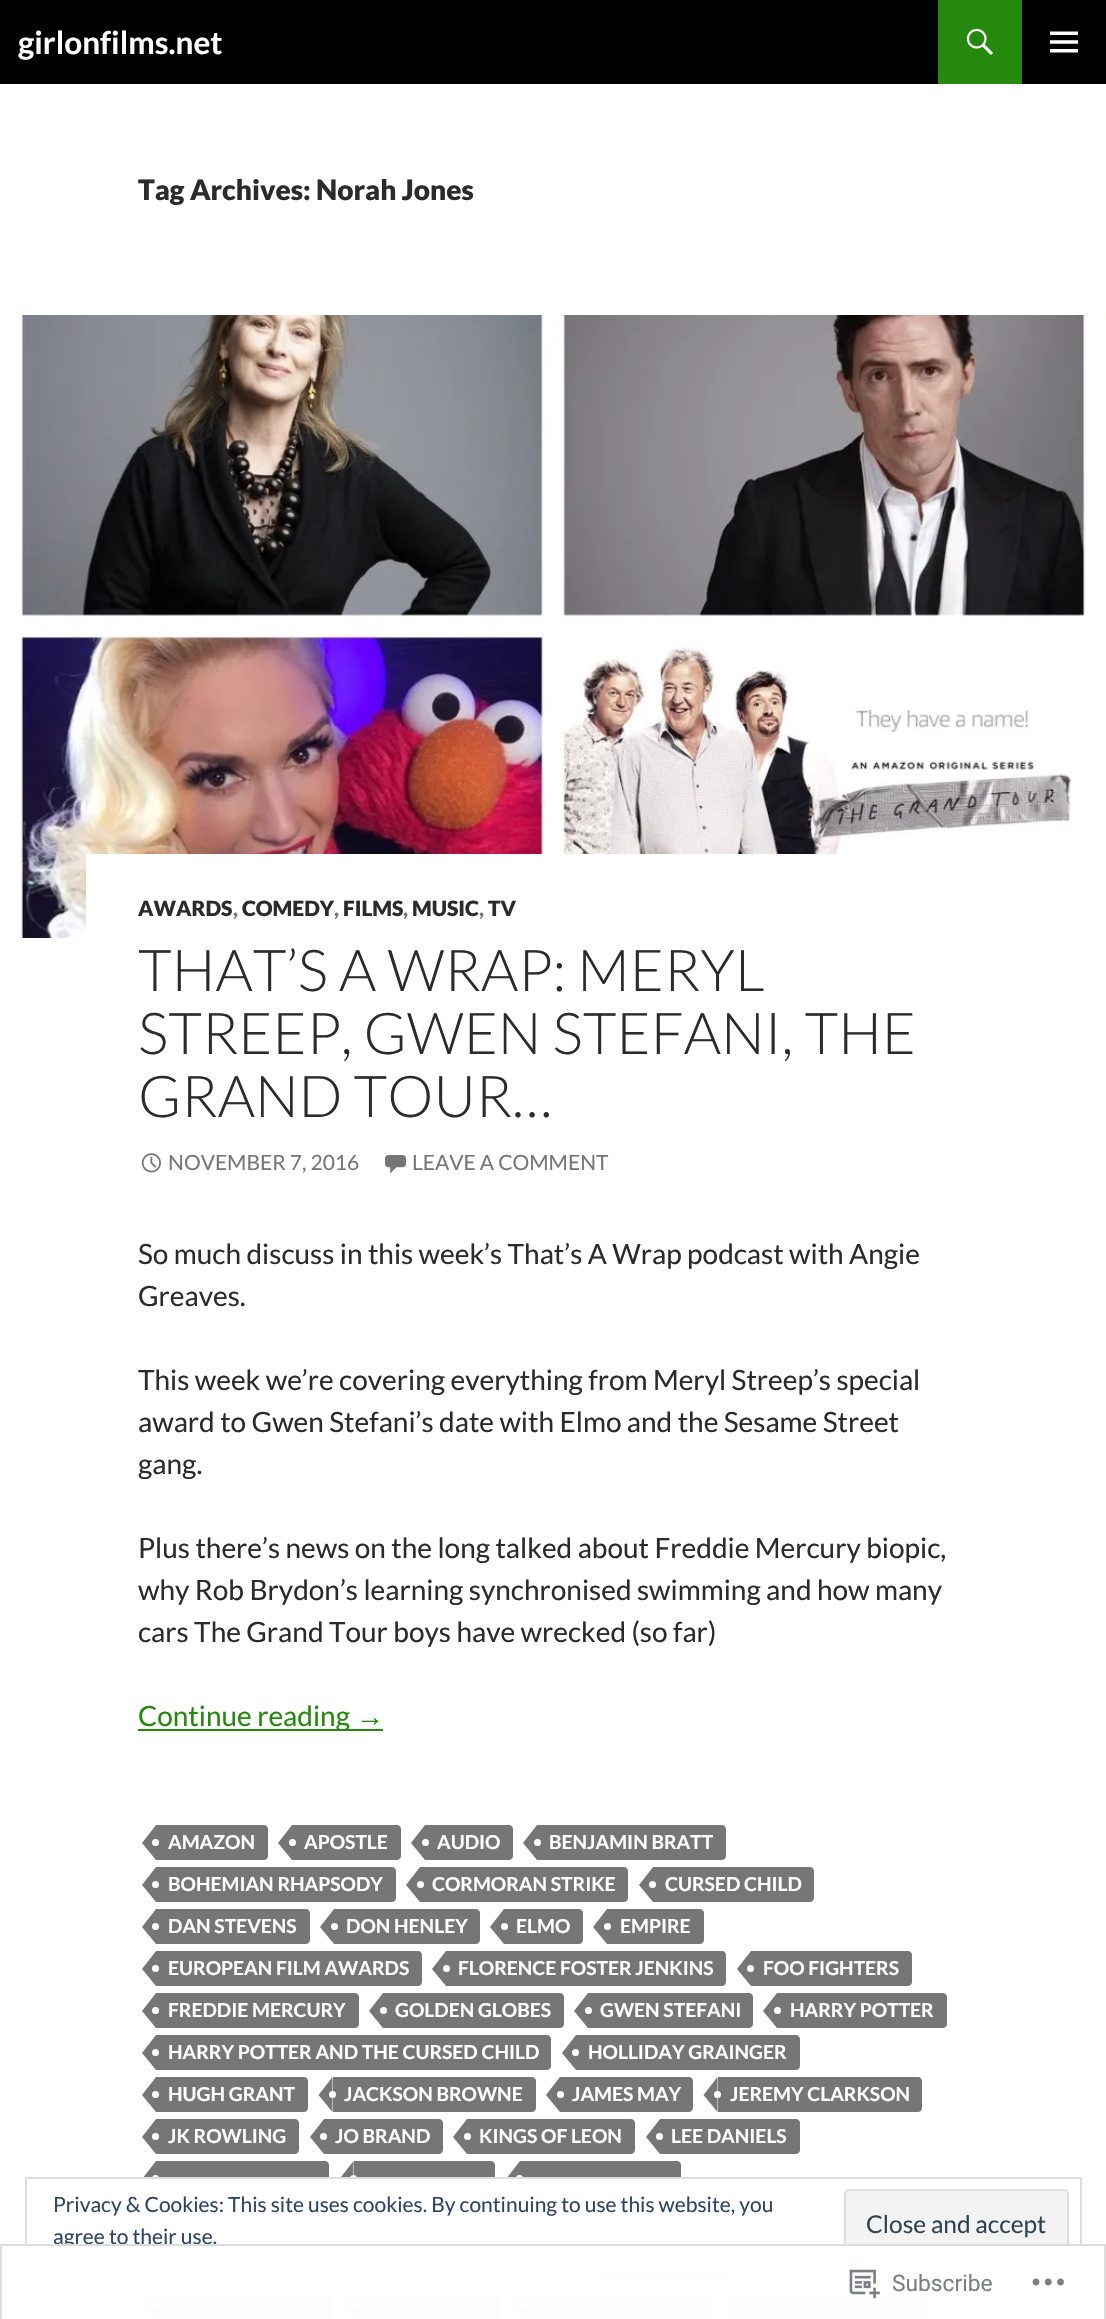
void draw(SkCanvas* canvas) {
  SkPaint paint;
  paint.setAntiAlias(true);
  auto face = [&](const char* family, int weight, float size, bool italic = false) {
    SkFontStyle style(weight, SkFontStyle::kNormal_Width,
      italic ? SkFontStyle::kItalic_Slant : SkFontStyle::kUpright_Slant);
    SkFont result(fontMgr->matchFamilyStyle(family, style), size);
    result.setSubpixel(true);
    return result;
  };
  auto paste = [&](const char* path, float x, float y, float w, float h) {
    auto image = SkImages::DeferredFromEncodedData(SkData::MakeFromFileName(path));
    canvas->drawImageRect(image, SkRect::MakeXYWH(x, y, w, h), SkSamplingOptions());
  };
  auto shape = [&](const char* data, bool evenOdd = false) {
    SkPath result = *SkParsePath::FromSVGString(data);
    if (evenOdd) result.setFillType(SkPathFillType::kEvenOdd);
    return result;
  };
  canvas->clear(0xffffffff);
  paint.setColor(0xff000000);
  canvas->drawRect(SkRect::MakeXYWH(0, 0, 1106, 84), paint);
  paint.setColor(0xff24890d);
  canvas->drawRect(SkRect::MakeXYWH(938, 0, 84, 84), paint);
  paste("img/1.png", 966, 28, 27, 27);
  paste("img/2.png", 1050, 31, 28, 22);
  paste("img/3.png", 0, 315, 1106, 623);
  paint.setColor(0xffffffff);
  canvas->drawRect(SkRect::MakeXYWH(86, 854, 930, 84), paint);
  paste("img/4.png", 141, 1153, 20, 20);
  paste("img/5.png", 385, 1155, 21, 19);
  paint.setColor(0xff24890d);
  canvas->drawRect(SkRect::MakeXYWH(138, 1729, 245, 2), paint);
  paint.setColor(0xff767676);
  canvas->drawPath(shape("M156 1825H264C266 1825 268 1827 268 1829V1856C268 1858 266 1860 264 1860H156Z"), paint);
  canvas->drawPath(shape("M156 1825V1860L142 1843Z"), paint);
  paint.setColor(0xffffffff);
  canvas->drawCircle(155.5f, 1842.5f, 3.5f, paint);
  paint.setColor(0xff767676);
  canvas->drawPath(shape("M292 1825H397C399 1825 401 1827 401 1829V1856C401 1858 399 1860 397 1860H292Z"), paint);
  canvas->drawPath(shape("M292 1825V1860L278 1843Z"), paint);
  paint.setColor(0xffffffff);
  canvas->drawCircle(292.5f, 1842.5f, 3.5f, paint);
  paint.setColor(0xff767676);
  canvas->drawPath(shape("M425 1825H509C511 1825 513 1827 513 1829V1856C513 1858 511 1860 509 1860H425Z"), paint);
  canvas->drawPath(shape("M425 1825V1860L411 1843Z"), paint);
  paint.setColor(0xffffffff);
  canvas->drawCircle(425.5f, 1842.5f, 3.5f, paint);
  paint.setColor(0xff767676);
  canvas->drawPath(shape("M537 1825H722C724 1825 726 1827 726 1829V1856C726 1858 724 1860 722 1860H537Z"), paint);
  canvas->drawPath(shape("M537 1825V1860L523 1843Z"), paint);
  paint.setColor(0xffffffff);
  canvas->drawCircle(537.5f, 1842.5f, 3.5f, paint);
  paint.setColor(0xff767676);
  canvas->drawPath(shape("M156 1867H392C394 1867 396 1869 396 1871V1898C396 1900 394 1902 392 1902H156Z"), paint);
  canvas->drawPath(shape("M156 1867V1902L142 1885Z"), paint);
  paint.setColor(0xffffffff);
  canvas->drawCircle(155.5f, 1884.5f, 3.5f, paint);
  paint.setColor(0xff767676);
  canvas->drawPath(shape("M420 1867H624C626 1867 628 1869 628 1871V1898C628 1900 626 1902 624 1902H420Z"), paint);
  canvas->drawPath(shape("M420 1867V1902L406 1885Z"), paint);
  paint.setColor(0xffffffff);
  canvas->drawCircle(420.5f, 1884.5f, 3.5f, paint);
  paint.setColor(0xff767676);
  canvas->drawPath(shape("M653 1867H810C812 1867 814 1869 814 1871V1898C814 1900 812 1902 810 1902H653Z"), paint);
  canvas->drawPath(shape("M653 1867V1902L639 1885Z"), paint);
  paint.setColor(0xffffffff);
  canvas->drawCircle(652.5f, 1884.5f, 3.5f, paint);
  paint.setColor(0xff767676);
  canvas->drawPath(shape("M156 1909H306C308 1909 310 1911 310 1913V1940C310 1942 308 1944 306 1944H156Z"), paint);
  canvas->drawPath(shape("M156 1909V1944L142 1927Z"), paint);
  paint.setColor(0xffffffff);
  canvas->drawCircle(155.5f, 1926.5f, 3.5f, paint);
  paint.setColor(0xff767676);
  canvas->drawPath(shape("M334 1909H476C478 1909 480 1911 480 1913V1940C480 1942 478 1944 476 1944H334Z"), paint);
  canvas->drawPath(shape("M334 1909V1944L320 1927Z"), paint);
  paint.setColor(0xffffffff);
  canvas->drawCircle(334.5f, 1926.5f, 3.5f, paint);
  paint.setColor(0xff767676);
  canvas->drawPath(shape("M504 1909H579C581 1909 583 1911 583 1913V1940C583 1942 581 1944 579 1944H504Z"), paint);
  canvas->drawPath(shape("M504 1909V1944L490 1927Z"), paint);
  paint.setColor(0xffffffff);
  canvas->drawCircle(504.5f, 1926.5f, 3.5f, paint);
  paint.setColor(0xff767676);
  canvas->drawPath(shape("M607 1909H700C702 1909 704 1911 704 1913V1940C704 1942 702 1944 700 1944H607Z"), paint);
  canvas->drawPath(shape("M607 1909V1944L593 1927Z"), paint);
  paint.setColor(0xffffffff);
  canvas->drawCircle(607.5f, 1926.5f, 3.5f, paint);
  paint.setColor(0xff767676);
  canvas->drawPath(shape("M156 1951H418C420 1951 422 1953 422 1955V1982C422 1984 420 1986 418 1986H156Z"), paint);
  canvas->drawPath(shape("M156 1951V1986L142 1969Z"), paint);
  paint.setColor(0xffffffff);
  canvas->drawCircle(155.5f, 1968.5f, 3.5f, paint);
  paint.setColor(0xff767676);
  canvas->drawPath(shape("M446 1951H722C724 1951 726 1953 726 1955V1982C726 1984 724 1986 722 1986H446Z"), paint);
  canvas->drawPath(shape("M446 1951V1986L432 1969Z"), paint);
  paint.setColor(0xffffffff);
  canvas->drawCircle(446.5f, 1968.5f, 3.5f, paint);
  paint.setColor(0xff767676);
  canvas->drawPath(shape("M751 1951H908C910 1951 912 1953 912 1955V1982C912 1984 910 1986 908 1986H751Z"), paint);
  canvas->drawPath(shape("M751 1951V1986L737 1969Z"), paint);
  paint.setColor(0xffffffff);
  canvas->drawCircle(750.5f, 1968.5f, 3.5f, paint);
  paint.setColor(0xff767676);
  canvas->drawPath(shape("M156 1993H355C357 1993 359 1995 359 1997V2024C359 2026 357 2028 355 2028H156Z"), paint);
  canvas->drawPath(shape("M156 1993V2028L142 2011Z"), paint);
  paint.setColor(0xffffffff);
  canvas->drawCircle(155.5f, 2010.5f, 3.5f, paint);
  paint.setColor(0xff767676);
  canvas->drawPath(shape("M383 1993H560C562 1993 564 1995 564 1997V2024C564 2026 562 2028 560 2028H383Z"), paint);
  canvas->drawPath(shape("M383 1993V2028L369 2011Z"), paint);
  paint.setColor(0xffffffff);
  canvas->drawCircle(383.5f, 2010.5f, 3.5f, paint);
  paint.setColor(0xff767676);
  canvas->drawPath(shape("M588 1993H749C751 1993 753 1995 753 1997V2024C753 2026 751 2028 749 2028H588Z"), paint);
  canvas->drawPath(shape("M588 1993V2028L574 2011Z"), paint);
  paint.setColor(0xffffffff);
  canvas->drawCircle(588.5f, 2010.5f, 3.5f, paint);
  paint.setColor(0xff767676);
  canvas->drawPath(shape("M777 1993H943C945 1993 947 1995 947 1997V2024C947 2026 945 2028 943 2028H777Z"), paint);
  canvas->drawPath(shape("M777 1993V2028L763 2011Z"), paint);
  paint.setColor(0xffffffff);
  canvas->drawCircle(777.5f, 2010.5f, 3.5f, paint);
  paint.setColor(0xff767676);
  canvas->drawPath(shape("M156 2035H547C549 2035 551 2037 551 2039V2066C551 2068 549 2070 547 2070H156Z"), paint);
  canvas->drawPath(shape("M156 2035V2070L142 2053Z"), paint);
  paint.setColor(0xffffffff);
  canvas->drawCircle(155.5f, 2052.5f, 3.5f, paint);
  paint.setColor(0xff767676);
  canvas->drawPath(shape("M576 2035H796C798 2035 800 2037 800 2039V2066C800 2068 798 2070 796 2070H576Z"), paint);
  canvas->drawPath(shape("M576 2035V2070L562 2053Z"), paint);
  paint.setColor(0xffffffff);
  canvas->drawCircle(575.5f, 2052.5f, 3.5f, paint);
  paint.setColor(0xff767676);
  canvas->drawPath(shape("M156 2077H304C306 2077 308 2079 308 2081V2108C308 2110 306 2112 304 2112H156Z"), paint);
  canvas->drawPath(shape("M156 2077V2112L142 2095Z"), paint);
  paint.setColor(0xffffffff);
  canvas->drawCircle(155.5f, 2094.5f, 3.5f, paint);
  paint.setColor(0xff767676);
  canvas->drawPath(shape("M333 2077H532C534 2077 536 2079 536 2081V2108C536 2110 534 2112 532 2112H333Z"), paint);
  canvas->drawPath(shape("M332.5 2077V2112L318.5 2095Z"), paint);
  paint.setColor(0xffffffff);
  canvas->drawCircle(332.5f, 2094.5f, 3.5f, paint);
  paint.setColor(0xff767676);
  canvas->drawPath(shape("M560 2077H689C691 2077 693 2079 693 2081V2108C693 2110 691 2112 689 2112H560Z"), paint);
  canvas->drawPath(shape("M560 2077V2112L546 2095Z"), paint);
  paint.setColor(0xffffffff);
  canvas->drawCircle(560.5f, 2094.5f, 3.5f, paint);
  paint.setColor(0xff767676);
  canvas->drawPath(shape("M718 2077H918C920 2077 922 2079 922 2081V2108C922 2110 920 2112 918 2112H718Z"), paint);
  canvas->drawPath(shape("M717.5 2077V2112L703.5 2095Z"), paint);
  paint.setColor(0xffffffff);
  canvas->drawCircle(717.5f, 2094.5f, 3.5f, paint);
  paint.setColor(0xff767676);
  canvas->drawPath(shape("M156 2119H295C297 2119 299 2121 299 2123V2150C299 2152 297 2154 295 2154H156Z"), paint);
  canvas->drawPath(shape("M156 2119V2154L142 2137Z"), paint);
  paint.setColor(0xffffffff);
  canvas->drawCircle(155.5f, 2136.5f, 3.5f, paint);
  paint.setColor(0xff767676);
  canvas->drawPath(shape("M324 2119H439C441 2119 443 2121 443 2123V2150C443 2152 441 2154 439 2154H324Z"), paint);
  canvas->drawPath(shape("M324 2119V2154L310 2137Z"), paint);
  paint.setColor(0xffffffff);
  canvas->drawCircle(323.5f, 2136.5f, 3.5f, paint);
  paint.setColor(0xff767676);
  canvas->drawPath(shape("M467 2119H631C633 2119 635 2121 635 2123V2150C635 2152 633 2154 631 2154H467Z"), paint);
  canvas->drawPath(shape("M467 2119V2154L453 2137Z"), paint);
  paint.setColor(0xffffffff);
  canvas->drawCircle(467.5f, 2136.5f, 3.5f, paint);
  paint.setColor(0xff767676);
  canvas->drawPath(shape("M660 2119H796C798 2119 800 2121 800 2123V2150C800 2152 798 2154 796 2154H660Z"), paint);
  canvas->drawPath(shape("M660 2119V2154L646 2137Z"), paint);
  paint.setColor(0xffffffff);
  canvas->drawCircle(659.5f, 2136.5f, 3.5f, paint);
  paint.setColor(0xff767676);
  canvas->drawPath(shape("M156 2161H325C327 2161 329 2163 329 2165V2192C329 2194 327 2196 325 2196H156Z"), paint);
  canvas->drawPath(shape("M156 2161V2196L142 2179Z"), paint);
  paint.setColor(0xffffffff);
  canvas->drawCircle(155.5f, 2178.5f, 3.5f, paint);
  paint.setColor(0xff767676);
  canvas->drawPath(shape("M354 2161H491C493 2161 495 2163 495 2165V2192C495 2194 493 2196 491 2196H354Z"), paint);
  canvas->drawPath(shape("M353.5 2161V2196L339.5 2179Z"), paint);
  paint.setColor(0xffffffff);
  canvas->drawCircle(353.5f, 2178.5f, 3.5f, paint);
  paint.setColor(0xff767676);
  canvas->drawPath(shape("M520 2161H677C679 2161 681 2163 681 2165V2192C681 2194 679 2196 677 2196H520Z"), paint);
  canvas->drawPath(shape("M520 2161V2196L506 2179Z"), paint);
  paint.setColor(0xffffffff);
  canvas->drawCircle(519.5f, 2178.5f, 3.5f, paint);
  paint.setColor(0xff767676);
  canvas->drawRect(SkRect::MakeXYWH(156, 2296, 175, 23), paint);
  canvas->drawPath(shape("M156 2287V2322L142 2305Z"), paint);
  paint.setColor(0xffffffff);
  canvas->drawCircle(155.5f, 2304.5f, 3.5f, paint);
  paint.setColor(0xff767676);
  canvas->drawRect(SkRect::MakeXYWH(355, 2296, 144, 23), paint);
  canvas->drawPath(shape("M355 2287V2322L341 2305Z"), paint);
  paint.setColor(0xffffffff);
  canvas->drawCircle(355.5f, 2304.5f, 3.5f, paint);
  paint.setColor(0xff767676);
  canvas->drawRect(SkRect::MakeXYWH(523, 2296, 189, 23), paint);
  canvas->drawPath(shape("M523 2287V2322L509 2305Z"), paint);
  paint.setColor(0xffffffff);
  canvas->drawCircle(523.5f, 2304.5f, 3.5f, paint);
  paint.setColor(0xff767676);
  canvas->drawRect(SkRect::MakeXYWH(737, 2296, 185, 23), paint);
  canvas->drawPath(shape("M737 2287V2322L723 2305Z"), paint);
  paint.setColor(0xffffffff);
  canvas->drawCircle(736.5f, 2304.5f, 3.5f, paint);
  canvas->drawRect(SkRect::MakeXYWH(142, 2179, 595, 115), paint);
  paint.setStroke(true);
  paint.setStrokeWidth(2);
  paint.setColor(0xffdedede);
  canvas->drawRect(SkRect::MakeXYWH(26, 2178, 1055, 117), paint);
  paint.setStroke(false);
  paint.setColor(0xfff3f3f3);
  canvas->drawRoundRect(SkRect::MakeXYWH(845, 2190, 223, 67), 4, 4, paint);
  paint.setStroke(true);
  paint.setColor(0xffdedede);
  canvas->drawRoundRect(SkRect::MakeXYWH(845, 2190, 223, 67), 4, 4, paint);
  paint.setStroke(false);
  paint.setColor(0xff2e4467);
  canvas->drawRect(SkRect::MakeXYWH(602, 2277, 126, 2), paint);
  auto f0 = face("Lato", 700, 31.5f);
  paint.setColor(0xffffffff);
  canvas->drawString("girlonfilms.net", 18, 54, f0, paint);
  auto f1 = face("Lato", 900, 28);
  paint.setColor(0xff2b2b2b);
  canvas->drawString("Tag Archives: Norah Jones", 138, 200, f1, paint);
  auto f2 = face("Lato", 900, 21);
  canvas->drawString("AWARDS", 138, 916, f2, paint);
  paint.setColor(0xff767676);
  canvas->drawString(",", 233, 916, f2, paint);
  paint.setColor(0xff2b2b2b);
  canvas->drawString("COMEDY", 242, 916, f2, paint);
  paint.setColor(0xff767676);
  canvas->drawString(",", 334, 916, f2, paint);
  paint.setColor(0xff2b2b2b);
  canvas->drawString("FILMS", 343, 916, f2, paint);
  paint.setColor(0xff767676);
  canvas->drawString(",", 403, 916, f2, paint);
  paint.setColor(0xff2b2b2b);
  canvas->drawString("MUSIC", 412, 916, f2, paint);
  paint.setColor(0xff767676);
  canvas->drawString(",", 479, 916, f2, paint);
  paint.setColor(0xff2b2b2b);
  canvas->drawString("TV", 488, 916, f2, paint);
  auto f3 = face("Lato", 300, 57.75f);
  {
    const struct { const char* s; float x, y; } items[] = {
      {"THAT’S A WRAP: MERYL", 138, 991},
      {"STREEP, GWEN STEFANI, THE", 138, 1054},
      {"GRAND TOUR…", 138, 1117},
    };
    for (auto [s, x, y] : items) {
      canvas->drawString(s, x, y, f3, paint);
    }
  }
  auto f4 = face("Lato", 400, 21);
  paint.setColor(0xff767676);
  canvas->drawString("NOVEMBER 7, 2016", 168, 1170, f4, paint);
  canvas->drawString("LEAVE A COMMENT", 412, 1170, f4, paint);
  auto f5 = face("Lato", 400, 28);
  paint.setColor(0xff2b2b2b);
  {
    const struct { const char* s; float x, y; } items[] = {
      {"So much discuss in this week’s That’s A Wrap podcast with Angie", 138, 1264},
      {"Greaves.", 138, 1306},
      {"This week we’re covering everything from Meryl Streep’s special", 138, 1390},
      {"award to Gwen Stefani’s date with Elmo and the Sesame Street", 138, 1432},
      {"gang.", 138, 1474},
      {"Plus there’s news on the long talked about Freddie Mercury biopic,", 138, 1558},
      {"why Rob Brydon’s learning synchronised swimming and how many", 138, 1600},
      {"cars The Grand Tour boys have wrecked (so far)", 138, 1642},
    };
    for (auto [s, x, y] : items) {
      canvas->drawString(s, x, y, f5, paint);
    }
  }
  paint.setColor(0xff24890d);
  canvas->drawString("Continue reading", 138, 1726, f5, paint);
  auto f6 = face("Liberation Sans", 400, 28);
  canvas->drawString("→", 356, 1726, f6, paint);
  auto f7 = face("Lato", 700, 19.25f);
  paint.setColor(0xffffffff);
  {
    const struct { const char* s; float x, y; } items[] = {
      {"AMAZON", 168, 1849},
      {"APOSTLE", 304, 1849},
      {"AUDIO", 437, 1849},
      {"BENJAMIN BRATT", 549, 1849},
      {"BOHEMIAN RHAPSODY", 168, 1891},
      {"CORMORAN STRIKE", 432, 1891},
      {"CURSED CHILD", 665, 1891},
      {"DAN STEVENS", 168, 1933},
      {"DON HENLEY", 346, 1933},
      {"ELMO", 516, 1933},
      {"EMPIRE", 620, 1933},
      {"EUROPEAN FILM AWARDS", 168, 1975},
      {"FLORENCE FOSTER JENKINS", 458, 1975},
      {"FOO FIGHTERS", 763, 1975},
      {"FREDDIE MERCURY", 168, 2017},
      {"GOLDEN GLOBES", 395, 2017},
      {"GWEN STEFANI", 600, 2017},
      {"HARRY POTTER", 790, 2017},
      {"HARRY POTTER AND THE CURSED CHILD", 168, 2059},
      {"HOLLIDAY GRAINGER", 588, 2059},
      {"HUGH GRANT", 168, 2101},
      {"JACKSON BROWNE", 344, 2101},
      {"JAMES MAY", 572, 2101},
      {"JEREMY CLARKSON", 730, 2101},
      {"JK ROWLING", 168, 2143},
      {"JO BRAND", 335, 2143},
      {"KINGS OF LEON", 479, 2143},
      {"LEE DANIELS", 671, 2143},
    };
    for (auto [s, x, y] : items) {
      canvas->drawString(s, x, y, f7, paint);
    }
  }
  paint.setColor(0xff2e4467);
  canvas->drawString("Privacy & Cookies: This site uses cookies. By continuing to use this website, you", 53, 2212, f4, paint);
  canvas->drawString("agree to their use.", 53, 2244, f4, paint);
  auto f8 = face("Lato", 400, 24.5f);
  paint.setColor(0xff2e4453);
  canvas->drawString("Close and accept", 866, 2233, f8, paint);
  paint.setColor(0xfaffffff);
  canvas->drawRect(SkRect::MakeXYWH(25, 2244, 1057, 75), paint);
  paint.setStroke(true);
  paint.setColor(0xfadcdcde);
  canvas->drawRect(SkRect::MakeXYWH(1, 2245, 1104, 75), paint);
  paste("img/6.png", 849, 2269, 31, 30);
  auto f9 = face("Roboto", 400, 22.75f);
  paint.setStroke(false);
  paint.setColor(0xff7b7f85);
  canvas->drawString("Subscribe", 892, 2291, f9, paint);
  paste("img/7.png", 1032, 2278, 32, 8);
}
